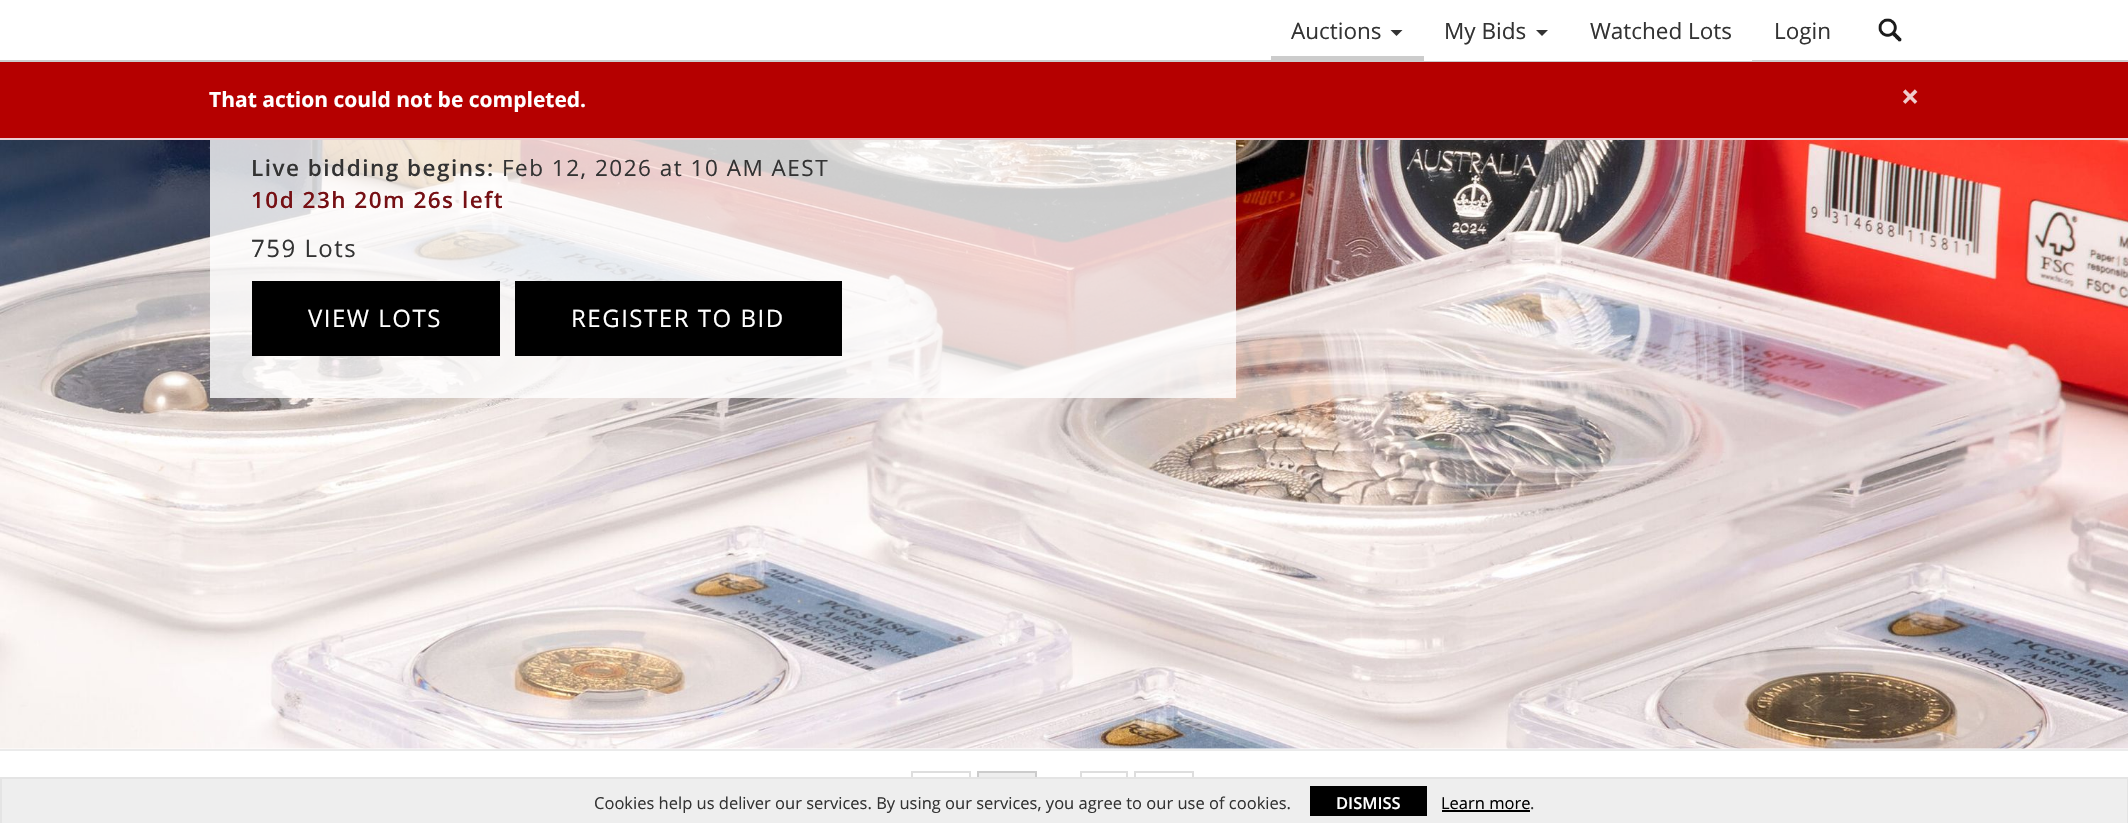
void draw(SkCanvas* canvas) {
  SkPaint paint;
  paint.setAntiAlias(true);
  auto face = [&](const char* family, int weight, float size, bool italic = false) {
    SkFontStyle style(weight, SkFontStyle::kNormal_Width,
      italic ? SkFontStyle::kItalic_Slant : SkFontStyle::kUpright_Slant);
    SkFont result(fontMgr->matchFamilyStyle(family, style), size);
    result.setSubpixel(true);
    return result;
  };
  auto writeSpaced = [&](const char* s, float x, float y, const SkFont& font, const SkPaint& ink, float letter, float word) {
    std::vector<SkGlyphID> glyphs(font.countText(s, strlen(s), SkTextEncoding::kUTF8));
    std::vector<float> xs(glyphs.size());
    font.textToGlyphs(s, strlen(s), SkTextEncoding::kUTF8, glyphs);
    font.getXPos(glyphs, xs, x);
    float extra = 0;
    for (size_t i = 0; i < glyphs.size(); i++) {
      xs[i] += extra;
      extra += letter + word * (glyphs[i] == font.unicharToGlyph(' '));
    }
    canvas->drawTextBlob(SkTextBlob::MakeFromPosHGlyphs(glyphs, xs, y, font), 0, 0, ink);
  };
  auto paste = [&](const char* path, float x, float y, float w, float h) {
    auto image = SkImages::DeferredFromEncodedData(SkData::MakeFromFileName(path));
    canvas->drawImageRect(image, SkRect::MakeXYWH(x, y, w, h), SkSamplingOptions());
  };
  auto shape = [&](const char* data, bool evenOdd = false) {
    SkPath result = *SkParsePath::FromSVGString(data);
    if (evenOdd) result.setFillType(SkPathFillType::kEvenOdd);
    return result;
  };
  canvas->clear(0xffffffff);
  paint.setColor(0xffcccccc);
  canvas->drawRect(SkRect::MakeXYWH(1271, 56, 153, 4), paint);
  paint.setColor(0xff333333);
  canvas->drawPath(shape("M1390.5 30H1402.5L1396.5 36Z"), paint);
  paint.setColor(0xffcccccc);
  canvas->drawRect(SkRect::MakeXYWH(0, 60, 2128, 2), paint);
  paint.setColor(0xffffffff);
  canvas->drawRect(SkRect::MakeXYWH(1424, 60, 328, 1), paint);
  paint.setColor(0xff333333);
  canvas->drawPath(shape("M1536 30H1548L1542 36Z"), paint);
  paste("img/1.png", 1878, 18, 24, 24);
  paint.setColor(0xffb50000);
  canvas->drawRect(SkRect::MakeXYWH(0, 62, 2128, 76), paint);
  paint.setColor(0xffebccd1);
  canvas->drawRect(SkRect::MakeXYWH(0, 138, 2128, 2), paint);
  paste("img/2.png", 0, 140, 2128, 609);
  {
    const struct { float x, y, w, h; SkColor color; } items[] = {
      {210, 140, 1026, 258, 0xccffffff},
      {252, 281, 248, 75, 0xff000000},
      {515, 281, 327, 75, 0xff000000},
      {0, 749, 2128, 2, 0xffebebeb},
    };
    for (auto [x, y, w, h, color] : items) {
      paint.setColor(color);
      canvas->drawRect(SkRect::MakeXYWH(x, y, w, h), paint);
    }
  }
  paint.setStroke(true);
  paint.setStrokeWidth(2);
  paint.setColor(0xffdedede);
  canvas->drawRect(SkRect::MakeXYWH(912, 772, 58, 42), paint);
  paint.setStroke(false);
  paint.setColor(0xffeeeeee);
  canvas->drawRect(SkRect::MakeXYWH(979, 773, 56, 4), paint);
  paint.setStroke(true);
  paint.setColor(0xffcccccc);
  canvas->drawRect(SkRect::MakeXYWH(978, 772, 58, 42), paint);
  paint.setColor(0xffdedede);
  canvas->drawRect(SkRect::MakeXYWH(1081, 772, 46, 42), paint);
  canvas->drawRect(SkRect::MakeXYWH(1135, 772, 58, 42), paint);
  paint.setStroke(false);
  {
    const struct { float x, y, w, h; SkColor color; } items[] = {
      {2, 779, 2125, 44, 0xffeeeeee},
      {0, 777, 2128, 2, 0xffe4e4e4},
      {2127, 777, 1, 46, 0xffe4e4e4},
      {0, 777, 2, 46, 0xffe4e4e4},
      {1310, 786, 117, 30, 0xff000000},
      {1442, 810, 88, 2, 0xff000000},
    };
    for (auto [x, y, w, h, color] : items) {
      paint.setColor(color);
      canvas->drawRect(SkRect::MakeXYWH(x, y, w, h), paint);
    }
  }
  auto f0 = face("Open Sans", 400, 22.5f);
  paint.setColor(0xff333333);
  {
    const struct { const char* s; float x, y; } items[] = {
      {"Auctions", 1291, 39},
      {"My Bids", 1444, 39},
      {"Watched Lots", 1590, 39},
      {"Login", 1774, 39},
    };
    for (auto [s, x, y] : items) {
      canvas->drawString(s, x, y, f0, paint);
    }
  }
  auto f1 = face("Open Sans", 700, 21);
  paint.setColor(0xffffffff);
  canvas->drawString("That action could not be completed.", 209, 107, f1, paint);
  auto f2 = face("Open Sans", 700, 32);
  paint.setColor(0xfff0cccc);
  canvas->drawString("×", 1901, 108, f2, paint);
  auto f3 = face("Open Sans", 600, 22.5f);
  paint.setColor(0xff333333);
  writeSpaced("Live bidding begins:", 251, 176, f3, paint, 1.5f, 0);
  writeSpaced("Feb 12, 2026 at 10 AM AEST", 502, 176, f0, paint, 1.5f, 0);
  paint.setColor(0xff761014);
  writeSpaced("10d 23h 20m 26s left", 251, 208, f3, paint, 1.5f, 0);
  auto f4 = face("Open Sans", 400, 24);
  paint.setColor(0xff333333);
  writeSpaced("759 Lots", 251, 257, f4, paint, 1.5f, 0);
  paint.setColor(0xffffffff);
  writeSpaced("VIEW LOTS", 308, 327, f4, paint, 1.5f, 0);
  writeSpaced("REGISTER TO BID", 571, 327, f4, paint, 1.5f, 0);
  auto f5 = face("Open Sans", 400, 16.5f);
  paint.setColor(0xff333333);
  canvas->drawString("Cookies help us deliver our services. By using our services, you agree to our use of cookies.", 594, 809, f5, paint);
  auto f6 = face("Open Sans", 600, 16.5f);
  paint.setColor(0xffffffff);
  canvas->drawString("DISMISS", 1336, 809, f6, paint);
  paint.setColor(0xff000000);
  canvas->drawString("Learn more", 1441, 809, f5, paint);
  paint.setColor(0xff333333);
  canvas->drawString(".", 1530, 809, f5, paint);
}
